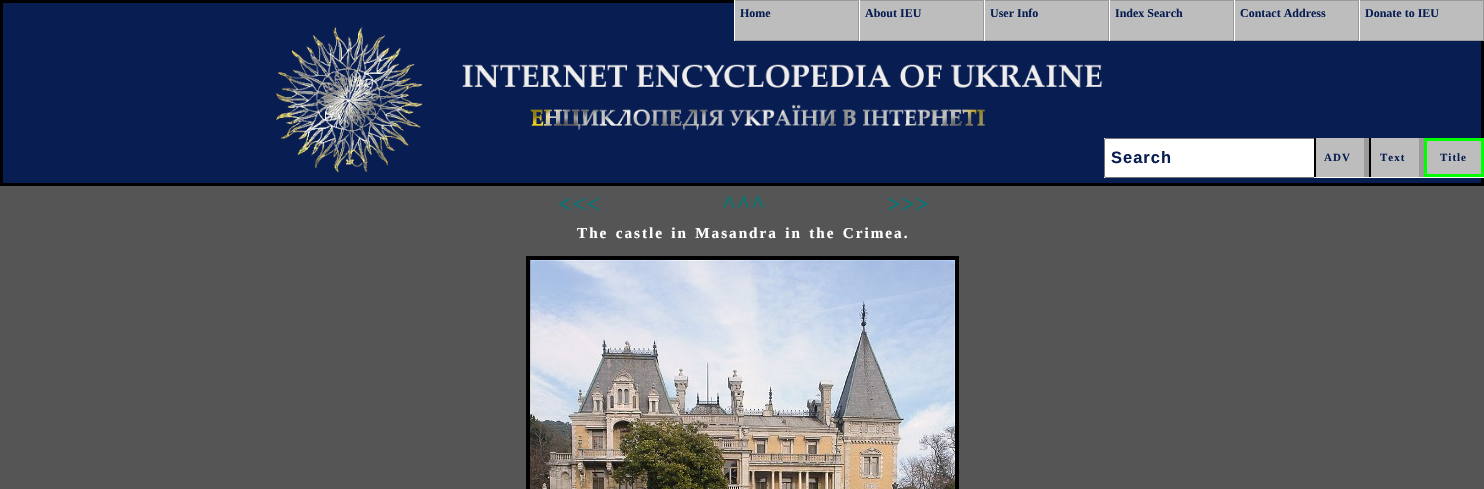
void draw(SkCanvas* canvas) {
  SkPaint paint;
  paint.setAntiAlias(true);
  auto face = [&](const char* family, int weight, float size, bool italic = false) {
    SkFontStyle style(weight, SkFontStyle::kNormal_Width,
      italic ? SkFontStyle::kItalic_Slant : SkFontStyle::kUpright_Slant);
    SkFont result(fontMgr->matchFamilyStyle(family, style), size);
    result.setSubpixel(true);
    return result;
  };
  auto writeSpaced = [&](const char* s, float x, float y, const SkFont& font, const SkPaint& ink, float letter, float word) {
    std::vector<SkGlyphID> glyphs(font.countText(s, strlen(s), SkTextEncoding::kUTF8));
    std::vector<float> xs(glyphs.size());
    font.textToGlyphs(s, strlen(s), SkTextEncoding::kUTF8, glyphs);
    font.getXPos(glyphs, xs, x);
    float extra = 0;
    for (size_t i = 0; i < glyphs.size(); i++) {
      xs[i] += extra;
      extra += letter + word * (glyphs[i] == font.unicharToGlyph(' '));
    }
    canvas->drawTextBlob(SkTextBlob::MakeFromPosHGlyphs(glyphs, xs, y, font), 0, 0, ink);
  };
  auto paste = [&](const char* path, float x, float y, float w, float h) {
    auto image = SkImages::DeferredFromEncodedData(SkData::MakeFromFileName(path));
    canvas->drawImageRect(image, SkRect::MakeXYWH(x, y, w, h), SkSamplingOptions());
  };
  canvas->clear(0xff081d52);
  paint.setStroke(true);
  paint.setStrokeWidth(3);
  paint.setColor(0xff000000);
  canvas->drawRect(SkRect::MakeXYWH(1.5f, 1.5f, 1481, 183), paint);
  paste("img/1.png", 276, 27, 827, 146);
  paint.setStroke(false);
  {
    const struct { float x, y, w, h; SkColor color; } items[] = {
      {735, 1, 123, 39, 0xffbdbdbd},
      {734, 0, 750, 1, 0xff9a9a9a},
      {858, 0, 1, 41, 0xff9a9a9a},
      {734, 40, 125, 1, 0xff9a9a9a},
      {734, 0, 1, 41, 0xffffffff},
      {860, 1, 123, 39, 0xffbdbdbd},
      {983, 0, 1, 41, 0xff9a9a9a},
      {859, 40, 125, 1, 0xff9a9a9a},
      {859, 0, 1, 41, 0xffffffff},
      {985, 1, 123, 39, 0xffbdbdbd},
      {1108, 0, 1, 41, 0xff9a9a9a},
      {984, 40, 125, 1, 0xff9a9a9a},
      {984, 0, 1, 41, 0xffffffff},
      {1110, 1, 123, 39, 0xffbdbdbd},
      {1233, 0, 1, 41, 0xff9a9a9a},
      {1109, 40, 125, 1, 0xff9a9a9a},
      {1109, 0, 1, 41, 0xffffffff},
      {1235, 1, 123, 39, 0xffbdbdbd},
      {1358, 0, 1, 41, 0xff9a9a9a},
      {1234, 40, 125, 1, 0xff9a9a9a},
      {1234, 0, 1, 41, 0xffffffff},
      {1360, 1, 123, 39, 0xffbdbdbd},
      {1483, 0, 1, 41, 0xff9a9a9a},
      {1359, 40, 125, 1, 0xff9a9a9a},
      {1359, 0, 1, 41, 0xffffffff},
      {1104, 138, 380, 40, 0xffffffff},
      {1316, 138, 48, 39, 0xffbdbdbd},
      {1314, 138, 2, 39, 0xff000000},
    };
    for (auto [x, y, w, h, color] : items) {
      paint.setColor(color);
      canvas->drawRect(SkRect::MakeXYWH(x, y, w, h), paint);
    }
  }
  canvas->save();
  canvas->clipRect(SkRect::MakeXYWH(1104, 138, 210, 40));
  paint.setStroke(true);
  paint.setStrokeWidth(1);
  paint.setColor(0xff767676);
  canvas->drawRoundRect(SkRect::MakeXYWH(1104.5f, 138.5f, 218, 39), 1.5f, 1.5f, paint);
  canvas->restore();
  paint.setStroke(false);
  {
    const struct { float x, y, w, h; SkColor color; } items[] = {
      {1364, 138, 5, 39, 0xff9a9a9a},
      {1371, 138, 48, 39, 0xffbdbdbd},
      {1419, 138, 5, 39, 0xff9a9a9a},
      {1369, 138, 2, 39, 0xff000000},
    };
    for (auto [x, y, w, h, color] : items) {
      paint.setColor(color);
      canvas->drawRect(SkRect::MakeXYWH(x, y, w, h), paint);
    }
  }
  paint.setColor(0xffbdbdbd);
  canvas->drawRect(SkRect::MakeXYWH(1425.5f, 139.5f, 57, 36), paint);
  paint.setStroke(true);
  paint.setStrokeWidth(3);
  paint.setColor(0xff00ff00);
  canvas->drawRect(SkRect::MakeXYWH(1425.5f, 139.5f, 57, 36), paint);
  paint.setStroke(false);
  paint.setColor(0xff555555);
  canvas->drawRect(SkRect::MakeXYWH(0, 186, 1484, 303), paint);
  paint.setStroke(true);
  paint.setStrokeWidth(4);
  paint.setColor(0xff000000);
  canvas->drawRect(SkRect::MakeXYWH(528, 258, 429, 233), paint);
  paste("img/2.png", 530, 260, 425, 229);
  auto f0 = face("Liberation Serif", 700, 12);
  paint.setStroke(false);
  paint.setColor(0xff081d52);
  {
    const struct { const char* s; float x, y; } items[] = {
      {"Home", 740, 17},
      {"About IEU", 865, 17},
      {"User Info", 990, 17},
      {"Index Search", 1115, 17},
      {"Contact Address", 1240, 17},
      {"Donate to IEU", 1365, 17},
    };
    for (auto [s, x, y] : items) {
      canvas->drawString(s, x, y, f0, paint);
    }
  }
  auto f1 = face("Liberation Sans", 700, 16.5f);
  writeSpaced("Search", 1111, 163, f1, paint, 1, 0);
  auto f2 = face("Liberation Serif", 700, 11);
  {
    const struct { const char* s; float x, y; } items[] = {
      {"ADV", 1324, 161},
      {"Text", 1380, 161},
      {"Title", 1440, 161},
    };
    for (auto [s, x, y] : items) {
      writeSpaced(s, x, y, f2, paint, 1, 0);
    }
  }
  auto f3 = face("Liberation Serif", 700, 24);
  paint.setColor(0xff027777);
  {
    const struct { const char* s; float x, y; } items[] = {
      {"<<<", 558, 212},
      {"^^^", 722, 212},
      {">>>", 887, 212},
    };
    for (auto [s, x, y] : items) {
      writeSpaced(s, x, y, f3, paint, 0.5f, 0);
    }
  }
  auto f4 = face("Liberation Serif", 700, 15.2f);
  paint.setColor(0xffffffff);
  writeSpaced("The castle in Masandra in the Crimea.", 577, 238, f4, paint, 2, 1.5f);
}
